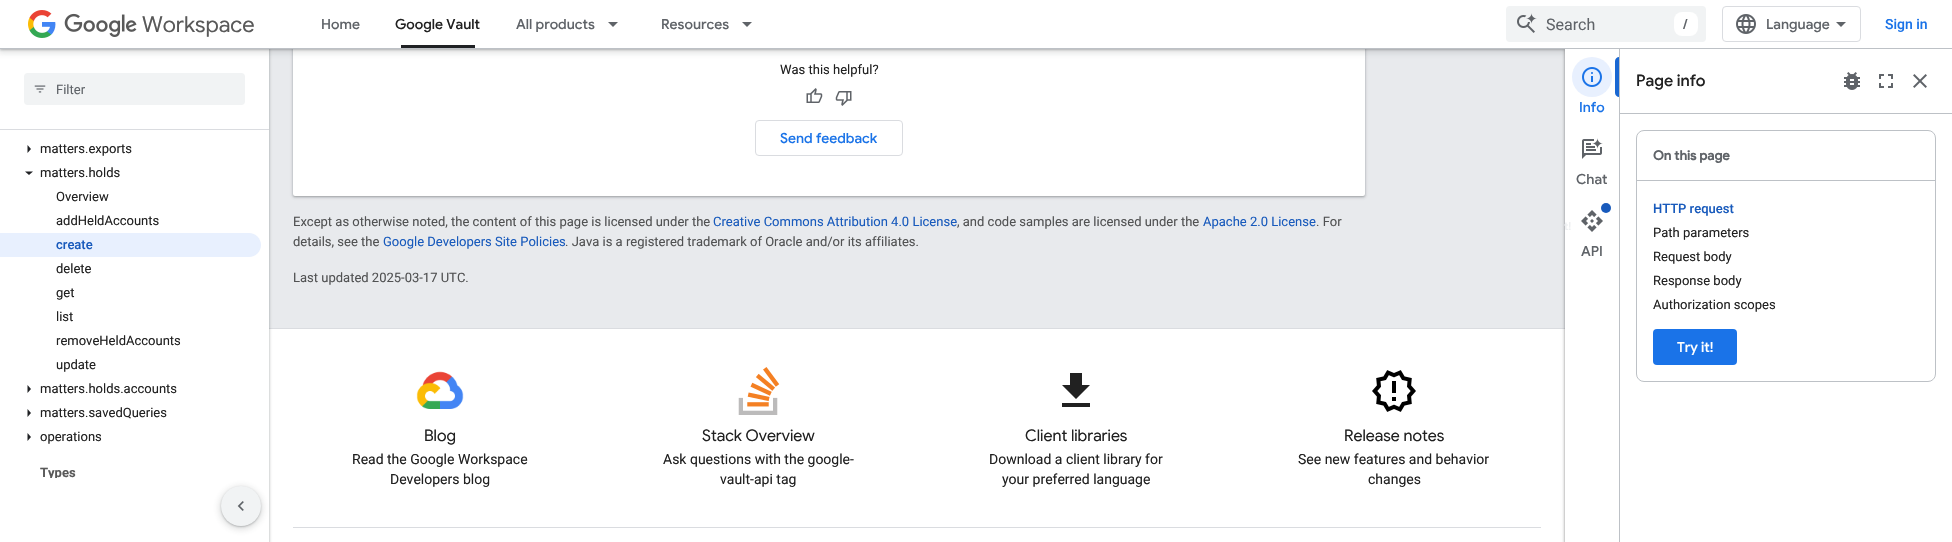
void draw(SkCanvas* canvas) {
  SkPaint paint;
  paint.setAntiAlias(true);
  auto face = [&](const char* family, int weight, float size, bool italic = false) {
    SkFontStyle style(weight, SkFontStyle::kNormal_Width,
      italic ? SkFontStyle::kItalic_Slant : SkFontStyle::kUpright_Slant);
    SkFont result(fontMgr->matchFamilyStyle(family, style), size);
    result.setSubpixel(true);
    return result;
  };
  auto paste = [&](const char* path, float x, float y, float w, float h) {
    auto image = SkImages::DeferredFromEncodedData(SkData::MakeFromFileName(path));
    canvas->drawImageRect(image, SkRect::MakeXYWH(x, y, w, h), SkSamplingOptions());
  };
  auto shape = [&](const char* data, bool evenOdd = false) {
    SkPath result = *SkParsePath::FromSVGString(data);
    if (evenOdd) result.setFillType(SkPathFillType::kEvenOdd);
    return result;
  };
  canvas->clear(0xffe8eaed);
  paint.setColor(0xffffffff);
  canvas->drawRect(SkRect::MakeXYWH(269, 329, 1296, 213), paint);
  paint.setColor(0xffdadce0);
  canvas->drawRect(SkRect::MakeXYWH(269, 328, 1296, 1), paint);
  paint.setColor(0x263c4043);
  paint.setMaskFilter(SkMaskFilter::MakeBlur(kNormal_SkBlurStyle, 1.5f));
  canvas->drawRect(SkRect::MakeXYWH(-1, 0, 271, 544), paint);
  paint.setMaskFilter(nullptr);
  paint.setColor(0x4d3c4043);
  paint.setMaskFilter(SkMaskFilter::MakeBlur(kNormal_SkBlurStyle, 1));
  canvas->drawRect(SkRect::MakeXYWH(0, 1, 269, 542), paint);
  paint.setMaskFilter(nullptr);
  paint.setColor(0xffffffff);
  canvas->drawRect(SkRect::MakeXYWH(0, 130, 269, 348), paint);
  canvas->drawRect(SkRect::MakeXYWH(0, 49, 269, 80), paint);
  paint.setColor(0x263c4043);
  paint.setMaskFilter(SkMaskFilter::MakeBlur(kNormal_SkBlurStyle, 1.5f));
  canvas->drawRoundRect(SkRect::MakeXYWH(292, -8, 1074, 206), 3, 3, paint);
  paint.setMaskFilter(nullptr);
  paint.setColor(0x4d3c4043);
  paint.setMaskFilter(SkMaskFilter::MakeBlur(kNormal_SkBlurStyle, 1));
  canvas->drawRoundRect(SkRect::MakeXYWH(293, -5, 1072, 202), 2, 2, paint);
  paint.setMaskFilter(nullptr);
  paint.setColor(0xffffffff);
  canvas->drawRoundRect(SkRect::MakeXYWH(293, -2, 1072, 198), 2, 2, paint);
  paint.setColor(0x263c4043);
  paint.setMaskFilter(SkMaskFilter::MakeBlur(kNormal_SkBlurStyle, 3));
  canvas->drawRect(SkRect::MakeXYWH(-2, -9, 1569, 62), paint);
  paint.setMaskFilter(nullptr);
  paint.setColor(0x4d3c4043);
  paint.setMaskFilter(SkMaskFilter::MakeBlur(kNormal_SkBlurStyle, 1));
  canvas->drawRect(SkRect::MakeXYWH(0, -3, 1565, 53), paint);
  paint.setMaskFilter(nullptr);
  paint.setColor(0x26000000);
  paint.setMaskFilter(SkMaskFilter::MakeBlur(kNormal_SkBlurStyle, 1.5f));
  canvas->drawRect(SkRect::MakeXYWH(1564, 48, 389, 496), paint);
  paint.setMaskFilter(nullptr);
  paint.setColor(0x4d000000);
  paint.setMaskFilter(SkMaskFilter::MakeBlur(kNormal_SkBlurStyle, 1));
  canvas->drawRect(SkRect::MakeXYWH(1565, 49, 387, 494), paint);
  paint.setMaskFilter(nullptr);
  {
    const struct { float x, y, w, h; SkColor color; } items[] = {
      {0, 0, 1952, 48, 0xffffffff},
      {1565, 49, 387, 493, 0xffffffff},
      {1619, 48, 1, 494, 0xffbdc1c6},
      {0, 48, 1952, 1, 0xffbdc1c6},
    };
    for (auto [x, y, w, h, color] : items) {
      paint.setColor(color);
      canvas->drawRect(SkRect::MakeXYWH(x, y, w, h), paint);
    }
  }
  paste("img/1.png", 28, 10, 28, 28);
  paste("img/2.png", 64, 13, 73, 24);
  paint.setColor(0xff202124);
  canvas->drawRect(SkRect::MakeXYWH(401, 45, 74, 3), paint);
  paint.setColor(0xff5f6368);
  canvas->drawPath(shape("M608 22H618L613 27Z"), paint);
  canvas->drawPath(shape("M742 22H752L747 27Z"), paint);
  paint.setColor(0xfff1f3f4);
  canvas->drawRoundRect(SkRect::MakeXYWH(1506, 6, 200, 36), 4, 4, paint);
  paste("img/3.png", 1517, 13, 20, 20);
  paint.setColor(0xffffffff);
  canvas->drawRoundRect(SkRect::MakeXYWH(1674, 12, 24, 24), 8, 8, paint);
  paint.setStroke(true);
  paint.setStrokeWidth(1);
  paint.setColor(0xffdadce0);
  canvas->drawRoundRect(SkRect::MakeXYWH(1722.5f, 6.5f, 138, 35), 3.5f, 3.5f, paint);
  paste("img/4.png", 1736, 14, 20, 20);
  paint.setStroke(false);
  paint.setColor(0xff5f6368);
  canvas->drawPath(shape("M1841 27L1836 22H1846Z"), paint);
  paint.setColor(0xffdadce0);
  canvas->drawRect(SkRect::MakeXYWH(0, 129, 269, 1), paint);
  paint.setColor(0xfff1f3f4);
  canvas->drawRoundRect(SkRect::MakeXYWH(24, 73, 221, 32), 4, 4, paint);
  paste("img/5.png", 34, 85, 12, 8);
  paint.setColor(0xff202124);
  canvas->drawPath(shape("M27.5 153V145L31 149Z"), paint);
  canvas->drawPath(shape("M25 171.5H33L29 175Z"), paint);
  paint.setColor(0xffe8f0fe);
  canvas->drawPath(shape("M0 233H249C255.5 233 261 238.5 261 245C261 251.5 255.5 257 249 257H0Z"), paint);
  paint.setColor(0xff202124);
  canvas->drawPath(shape("M27.5 393V385L31 389Z"), paint);
  canvas->drawPath(shape("M27.5 417V409L31 413Z"), paint);
  canvas->drawPath(shape("M27.5 441V433L31 437Z"), paint);
  paste("img/6.png", 806, 88, 17, 15);
  paste("img/7.png", 835, 91, 17, 15);
  paint.setStroke(true);
  paint.setColor(0xffdadce0);
  canvas->drawRoundRect(SkRect::MakeXYWH(755.5f, 120.5f, 147, 35), 3.5f, 3.5f, paint);
  paint.setStroke(false);
  paint.setColor(0xffe8f0fe);
  canvas->drawCircle(1592, 77, 20, paint);
  paste("img/8.png", 1582, 67, 20, 20);
  paint.setColor(0xff1967d2);
  canvas->drawPath(shape("M1619 57V97C1617 97 1615 95 1615 93V61C1615 59 1617 57 1619 57Z"), paint);
  paste("img/9.png", 1582, 138, 21, 21);
  paste("img/10.png", 1581, 210, 22, 22);
  paint.setColor(0xff185abc);
  canvas->drawCircle(1606, 208, 5, paint);
  paint.setColor(0xffbdc1c6);
  canvas->drawRect(SkRect::MakeXYWH(1620, 113, 332, 1), paint);
  paste("img/11.png", 1844, 72, 16, 18);
  paste("img/12.png", 1879, 74, 14, 14);
  paste("img/13.png", 1913, 74, 14, 14);
  paint.setStroke(true);
  canvas->drawRoundRect(SkRect::MakeXYWH(1636.5f, 130.5f, 299, 251), 7.5f, 7.5f, paint);
  paint.setStroke(false);
  canvas->drawRect(SkRect::MakeXYWH(1637, 180, 298, 1), paint);
  paint.setColor(0xff1a73e8);
  canvas->drawRoundRect(SkRect::MakeXYWH(1653, 329, 84, 36), 4, 4, paint);
  paint.setColor(0xffdadce0);
  canvas->drawRect(SkRect::MakeXYWH(293, 527, 1248, 1), paint);
  paste("img/14.png", 416, 371, 48, 38);
  paste("img/15.png", 738, 367, 42, 48);
  paint.setColor(0xff212121);
  canvas->drawPath(shape("M1062 403H1090V407H1062ZM1090 385L1076 399L1062 385H1070V373H1082V385Z"), paint);
  paste("img/16.png", 1372, 370, 44, 42);
  auto f0 = face("Google Sans", 400, 22);
  paint.setColor(0xff595959);
  canvas->drawString("Workspace", 142, 32, f0, paint);
  auto f1 = face("Google Sans", 500, 14);
  paint.setColor(0xff5f6368);
  canvas->drawString("Home", 321, 29, f1, paint);
  paint.setColor(0xff212121);
  canvas->drawString("Google Vault", 395, 29, f1, paint);
  paint.setColor(0xff5f6368);
  canvas->drawString("All products", 516, 29, f1, paint);
  canvas->drawString("Resources", 661, 29, f1, paint);
  auto f2 = face("Roboto", 400, 16);
  canvas->drawString("Search", 1546, 30, f2, paint);
  canvas->drawString("/", 1683, 29, f1, paint);
  canvas->drawString("Language", 1766, 29, f1, paint);
  auto f3 = face("Roboto", 500, 14);
  paint.setColor(0xff1a73e8);
  canvas->drawString("Sign in", 1885, 29, f3, paint);
  auto f4 = face("Roboto", 400, 13);
  paint.setColor(0xff5f6368);
  canvas->drawString("Filter", 56, 94, f4, paint);
  paint.setColor(0xff212121);
  {
    const struct { const char* s; float x, y; } items[] = {
      {"matters.exports", 40, 153},
      {"matters.holds", 40, 177},
      {"Overview", 56, 201},
      {"addHeldAccounts", 56, 225},
    };
    for (auto [s, x, y] : items) {
      canvas->drawString(s, x, y, f4, paint);
    }
  }
  auto f5 = face("Roboto", 500, 13);
  paint.setColor(0xff185abc);
  canvas->drawString("create", 56, 249, f5, paint);
  paint.setColor(0xff212121);
  {
    const struct { const char* s; float x, y; } items[] = {
      {"delete", 56, 273},
      {"get", 56, 297},
      {"list", 56, 321},
      {"removeHeldAccounts", 56, 345},
      {"update", 56, 369},
      {"matters.holds.accounts", 40, 393},
      {"matters.savedQueries", 40, 417},
      {"operations", 40, 441},
    };
    for (auto [s, x, y] : items) {
      canvas->drawString(s, x, y, f4, paint);
    }
  }
  auto f6 = face("Roboto", 700, 13);
  paint.setColor(0xff595959);
  canvas->drawString("Types", 40, 477, f6, paint);
  paint.setColor(0xff212121);
  canvas->drawString("Was this helpful?", 780, 74, f4, paint);
  paint.setColor(0xff1a73e8);
  canvas->drawString("Send feedback", 780, 143, f1, paint);
  paint.setColor(0xff515253);
  canvas->drawString("Except as otherwise noted, the content of this page is licensed under the", 293, 226, f4, paint);
  paint.setColor(0xff185abc);
  canvas->drawString("Creative Commons Attribution 4.0 License", 713, 226, f4, paint);
  paint.setColor(0xff515253);
  canvas->drawString(", and code samples are licensed under the", 957, 226, f4, paint);
  paint.setColor(0xff185abc);
  canvas->drawString("Apache 2.0 License", 1203, 226, f4, paint);
  paint.setColor(0xff515253);
  canvas->drawString(". For", 1316, 226, f4, paint);
  canvas->drawString("details, see the", 293, 246, f4, paint);
  paint.setColor(0xff185abc);
  canvas->drawString("Google Developers Site Policies", 383, 246, f4, paint);
  paint.setColor(0xff515253);
  canvas->drawString(". Java is a registered trademark of Oracle and/or its affiliates.", 565, 246, f4, paint);
  canvas->drawString("Last updated 2025-03-17 UTC.", 293, 282, f4, paint);
  paint.setColor(0xff1a73e8);
  canvas->drawString("Info", 1579, 112, f1, paint);
  paint.setColor(0xff5f6368);
  canvas->drawString("Chat", 1576, 184, f1, paint);
  auto f7 = face("Google Sans", 500, 11);
  paint.setColor(0xffedeff1);
  canvas->drawString("t!", 1564, 230, f7, paint);
  paint.setColor(0xff5f6368);
  canvas->drawString("API", 1581, 256, f1, paint);
  auto f8 = face("Google Sans", 500, 16);
  paint.setColor(0xff212121);
  canvas->drawString("Page info", 1636, 86, f8, paint);
  auto f9 = face("Google Sans", 700, 13);
  paint.setColor(0xff5f6368);
  canvas->drawString("On this page", 1653, 160, f9, paint);
  paint.setColor(0xff185abc);
  canvas->drawString("HTTP request", 1653, 213, f5, paint);
  paint.setColor(0xff212121);
  {
    const struct { const char* s; float x, y; } items[] = {
      {"Path parameters", 1653, 237},
      {"Request body", 1653, 261},
      {"Response body", 1653, 285},
      {"Authorization scopes", 1653, 309},
    };
    for (auto [s, x, y] : items) {
      canvas->drawString(s, x, y, f4, paint);
    }
  }
  paint.setColor(0xffffffff);
  canvas->drawString("Try it!", 1677, 352, f1, paint);
  auto f10 = face("Google Sans", 400, 16);
  paint.setColor(0xff212121);
  canvas->drawString("Blog", 424, 441, f10, paint);
  auto f11 = face("Roboto", 400, 14);
  canvas->drawString("Read the Google Workspace", 352, 464, f11, paint);
  canvas->drawString("Developers blog", 390, 484, f11, paint);
  canvas->drawString("Stack Overview", 702, 441, f10, paint);
  canvas->drawString("Ask questions with the google-", 663, 464, f11, paint);
  canvas->drawString("vault-api tag", 720, 484, f11, paint);
  canvas->drawString("Client libraries", 1025, 441, f10, paint);
  canvas->drawString("Download a client library for", 989, 464, f11, paint);
  canvas->drawString("your preferred language", 1002, 484, f11, paint);
  canvas->drawString("Release notes", 1344, 441, f10, paint);
  canvas->drawString("See new features and behavior", 1298, 464, f11, paint);
  canvas->drawString("changes", 1368, 484, f11, paint);
  paint.setColor(0xffffffff);
  canvas->drawRect(SkRect::MakeXYWH(0, 478, 269, 64), paint);
  paint.setColor(0x4d3c4043);
  paint.setMaskFilter(SkMaskFilter::MakeBlur(kNormal_SkBlurStyle, 1));
  canvas->drawRoundRect(SkRect::MakeXYWH(221, 487, 40, 40), 20, 20, paint);
  paint.setMaskFilter(nullptr);
  paint.setColor(0x263c4043);
  paint.setMaskFilter(SkMaskFilter::MakeBlur(kNormal_SkBlurStyle, 3));
  canvas->drawRoundRect(SkRect::MakeXYWH(219, 486, 44, 44), 22, 22, paint);
  paint.setMaskFilter(nullptr);
  paint.setColor(0xfff1f3f4);
  canvas->drawCircle(241, 506, 20, paint);
  paste("img/17.png", 237, 501, 7, 10);
}
